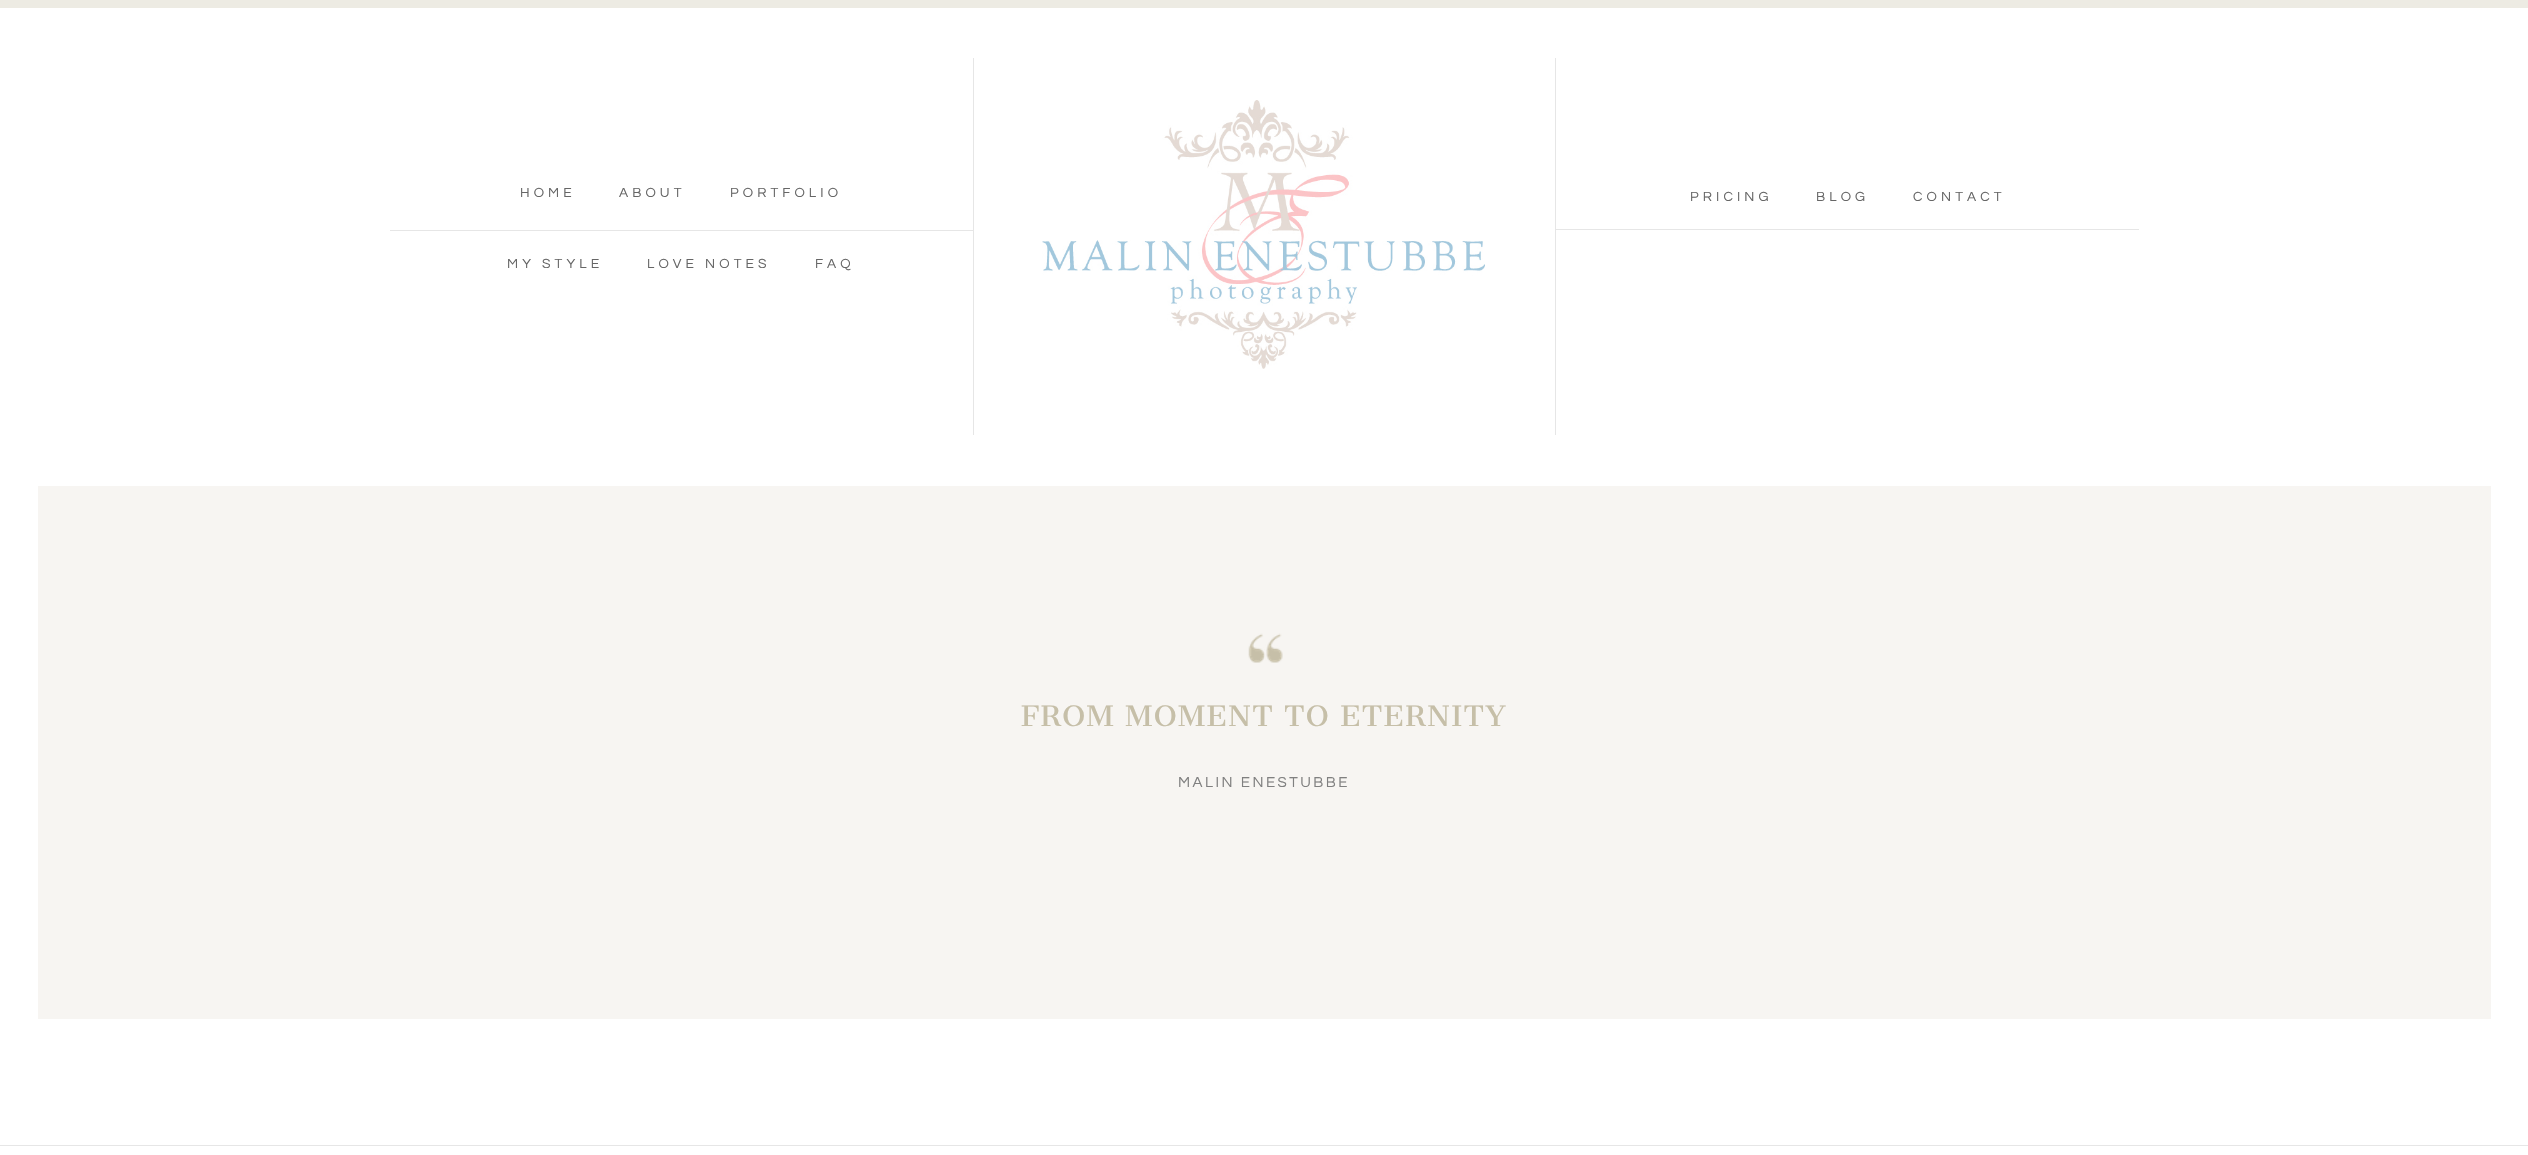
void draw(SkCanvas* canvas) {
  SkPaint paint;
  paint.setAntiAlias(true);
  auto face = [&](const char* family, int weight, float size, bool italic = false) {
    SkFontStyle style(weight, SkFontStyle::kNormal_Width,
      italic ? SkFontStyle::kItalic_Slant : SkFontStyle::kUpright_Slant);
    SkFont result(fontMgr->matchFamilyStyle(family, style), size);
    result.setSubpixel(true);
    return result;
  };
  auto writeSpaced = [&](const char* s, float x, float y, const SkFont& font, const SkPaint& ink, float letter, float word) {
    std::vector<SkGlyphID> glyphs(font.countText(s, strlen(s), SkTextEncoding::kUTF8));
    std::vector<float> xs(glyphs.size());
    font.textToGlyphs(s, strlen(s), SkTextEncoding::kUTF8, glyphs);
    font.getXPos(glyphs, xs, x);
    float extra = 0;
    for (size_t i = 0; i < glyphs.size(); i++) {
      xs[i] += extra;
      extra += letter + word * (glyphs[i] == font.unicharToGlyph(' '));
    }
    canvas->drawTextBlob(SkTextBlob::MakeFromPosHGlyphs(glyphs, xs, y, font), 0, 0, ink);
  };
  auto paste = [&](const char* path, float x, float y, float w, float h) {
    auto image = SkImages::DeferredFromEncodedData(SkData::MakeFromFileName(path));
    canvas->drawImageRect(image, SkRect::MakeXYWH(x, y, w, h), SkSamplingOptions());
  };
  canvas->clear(0xffffffff);
  {
    const struct { float x, y, w, h; SkColor color; } items[] = {
      {0, 0, 2528, 8, 0xffedebe3},
      {390, 230, 583, 1, 0xffe6e6e6},
      {1555, 58, 1, 377, 0xffe6e6e6},
      {973, 58, 1, 377, 0xffe6e6e6},
    };
    for (auto [x, y, w, h, color] : items) {
      paint.setColor(color);
      canvas->drawRect(SkRect::MakeXYWH(x, y, w, h), paint);
    }
  }
  paste("img/1.png", 1042, 100, 443, 269);
  canvas->drawRect(SkRect::MakeXYWH(1556, 229, 583, 1), paint);
  paint.setColor(0xfff7f5f2);
  canvas->drawRect(SkRect::MakeXYWH(38, 486, 2453, 533), paint);
  paste("img/2.png", 1248, 633, 35, 30);
  paint.setColor(0xffe6e6e6);
  canvas->drawRect(SkRect::MakeXYWH(0, 1145, 2528, 1), paint);
  auto f0 = face("Questrial", 400, 13.75f);
  paint.setColor(0xff666666);
  {
    const struct { const char* s; float x, y; } items[] = {
      {"HOME", 520, 197},
      {"ABOUT", 619, 197},
      {"PORTFOLIO", 730, 197},
      {"MY STYLE", 507, 268},
      {"LOVE NOTES", 647, 268},
      {"FAQ", 815, 268},
      {"PRICING", 1690, 201},
      {"BLOG", 1816, 201},
      {"CONTACT", 1913, 201},
    };
    for (auto [s, x, y] : items) {
      writeSpaced(s, x, y, f0, paint, 4.1f, 0);
    }
  }
  auto f1 = face("Cantata One", 400, 27.5f);
  paint.setColor(0xffc6bfa8);
  writeSpaced("FROM MOMENT TO ETERNITY", 1021, 726, f1, paint, 1.1f, 0);
  auto f2 = face("Questrial", 400, 15);
  paint.setColor(0xff808080);
  writeSpaced("MALIN ENESTUBBE", 1178, 787, f2, paint, 2.5f, 0);
}
